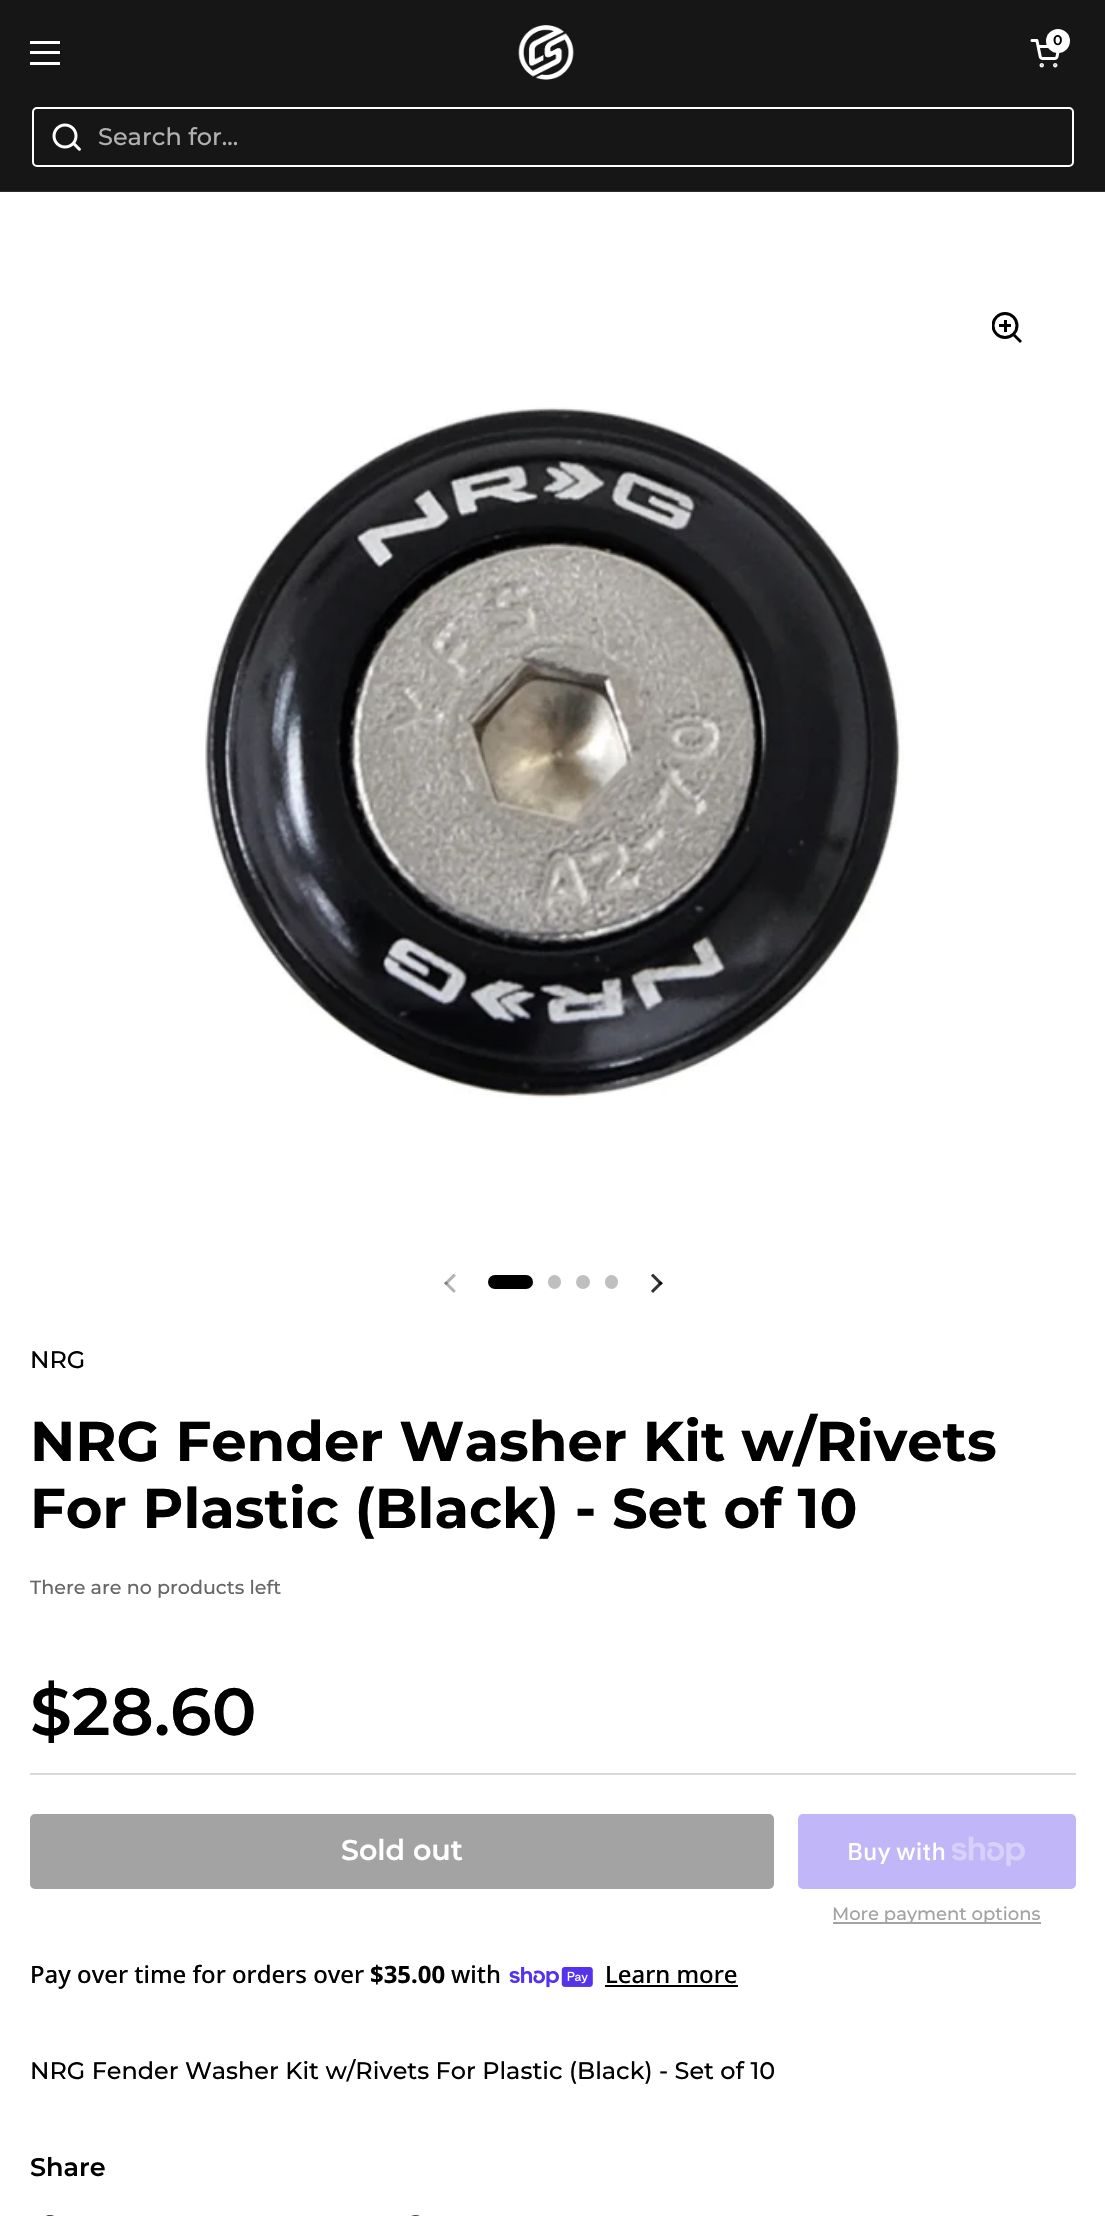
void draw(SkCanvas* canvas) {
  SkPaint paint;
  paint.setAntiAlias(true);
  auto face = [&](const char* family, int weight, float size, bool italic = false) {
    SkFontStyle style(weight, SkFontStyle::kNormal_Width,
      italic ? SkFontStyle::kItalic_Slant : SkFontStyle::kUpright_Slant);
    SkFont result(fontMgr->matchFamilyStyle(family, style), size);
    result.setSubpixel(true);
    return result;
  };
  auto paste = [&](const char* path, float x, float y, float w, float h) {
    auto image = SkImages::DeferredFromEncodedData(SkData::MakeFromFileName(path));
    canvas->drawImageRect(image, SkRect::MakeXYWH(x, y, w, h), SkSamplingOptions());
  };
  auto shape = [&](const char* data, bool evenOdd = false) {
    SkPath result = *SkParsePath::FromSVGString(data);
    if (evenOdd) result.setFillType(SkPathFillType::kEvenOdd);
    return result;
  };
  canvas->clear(0xffffffff);
  {
    const struct { float x, y, w, h; SkColor color; } items[] = {
      {0, 0, 1105, 191, 0xff161616},
      {0, 191, 1105, 1, 0xff2d2d2d},
      {30, 41, 30, 3, 0xffffffff},
      {30, 51, 30, 3, 0xffffffff},
      {30, 62, 30, 3, 0xffffffff},
    };
    for (auto [x, y, w, h, color] : items) {
      paint.setColor(color);
      canvas->drawRect(SkRect::MakeXYWH(x, y, w, h), paint);
    }
  }
  paste("img/1.png", 518, 25, 56, 55);
  paste("img/2.png", 1030, 39, 30, 29);
  canvas->drawCircle(1058, 41, 12, paint);
  paint.setStroke(true);
  paint.setStrokeWidth(2);
  canvas->drawRoundRect(SkRect::MakeXYWH(33, 108, 1040, 58), 4, 4, paint);
  paste("img/3.png", 52, 123, 29, 28);
  canvas->save();
  canvas->clipRect(SkRect::MakeXYWH(992, 312, 31, 32));
  paint.setStrokeWidth(3);
  paint.setColor(0xff000000);
  canvas->drawCircle(1005, 325.5f, 12, paint);
  canvas->restore();
  paint.setStroke(false);
  canvas->drawRect(SkRect::MakeXYWH(1004, 320, 3, 12), paint);
  canvas->drawRect(SkRect::MakeXYWH(999, 324, 12, 3), paint);
  canvas->drawPath(shape("M1013 336L1015 334L1022 341L1020 343Z"), paint);
  paste("img/4.png", 204, 407, 700, 692);
  paste("img/5.png", 444, 1274, 12, 19);
  canvas->drawRoundRect(SkRect::MakeXYWH(488, 1275, 45, 14), 7, 7, paint);
  paint.setColor(0xffbfbfbf);
  canvas->drawRoundRect(SkRect::MakeXYWH(548, 1275, 13, 14), 6.5f, 6.5f, paint);
  canvas->drawCircle(583, 1282, 7, paint);
  canvas->drawRoundRect(SkRect::MakeXYWH(605, 1275, 13, 14), 6.5f, 6.5f, paint);
  paste("img/6.png", 651, 1274, 12, 19);
  paint.setColor(0xffd9d9d9);
  canvas->drawRect(SkRect::MakeXYWH(30, 1773, 1046, 2), paint);
  paint.setColor(0xffa3a3a3);
  canvas->drawRoundRect(SkRect::MakeXYWH(31, 1815, 742, 73), 4, 4, paint);
  paint.setStroke(true);
  paint.setStrokeWidth(2);
  canvas->drawRoundRect(SkRect::MakeXYWH(31, 1815, 742, 73), 4, 4, paint);
  paint.setStroke(false);
  paint.setColor(0xffc1b6f8);
  canvas->drawRoundRect(SkRect::MakeXYWH(798, 1814, 278, 75), 5, 5, paint);
  paste("img/7.png", 952, 1836, 73, 30);
  paint.setColor(0xffa3a3a3);
  canvas->drawRect(SkRect::MakeXYWH(833, 1922, 208, 2), paint);
  paste("img/8.png", 509, 1967, 84, 21);
  paint.setColor(0xff000000);
  canvas->drawRect(SkRect::MakeXYWH(605, 1985, 133, 2), paint);
  paste("img/9.png", 46, 2215, 8, 1);
  paste("img/10.png", 411, 2215, 9, 1);
  auto f0 = face("Montserrat", 600, 14);
  canvas->drawString("0", 1053, 45, f0, paint);
  auto f1 = face("Montserrat", 500, 24);
  paint.setColor(0xffb0b0b0);
  canvas->drawString("Search for...", 98, 145, f1, paint);
  auto f2 = face("Montserrat", 500, 23.9f);
  paint.setColor(0xff000000);
  canvas->drawString("NRG", 30, 1368, f2, paint);
  auto f3 = face("Montserrat", 700, 56);
  canvas->drawString("NRG Fender Washer Kit w/Rivets", 30, 1461, f3, paint);
  canvas->drawString("For Plastic (Black) - Set of 10", 30, 1528, f3, paint);
  auto f4 = face("Montserrat", 500, 19.1f);
  paint.setColor(0xff666666);
  canvas->drawString("There are no products left", 30, 1594, f4, paint);
  auto f5 = face("Montserrat", 600, 66.5f);
  paint.setColor(0xff000000);
  canvas->drawString("$28.60", 30, 1735, f5, paint);
  auto f6 = face("Montserrat", 600, 28.5f);
  paint.setColor(0xffffffff);
  canvas->drawString("Sold out", 341, 1860, f6, paint);
  auto f7 = face("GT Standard", 500, 24);
  canvas->drawString("Buy with", 847, 1860, f7, paint);
  auto f8 = face("Montserrat", 500, 18);
  paint.setColor(0xffa3a3a3);
  canvas->drawString("More payment options", 832, 1920, f8, paint);
  auto f9 = face("Noto Sans", 500, 23.9f);
  paint.setColor(0xff000000);
  canvas->drawString("Pay over time for orders over", 30, 1983, f9, paint);
  auto f10 = face("Noto Sans", 700, 23.9f);
  canvas->drawString("$35.00", 370, 1983, f10, paint);
  canvas->drawString("with", 451, 1983, f9, paint);
  canvas->drawString("Learn more", 605, 1983, f9, paint);
  canvas->drawString("NRG Fender Washer Kit w/Rivets For Plastic (Black) - Set of 10", 30, 2079, f2, paint);
  auto f11 = face("Montserrat", 600, 25.5f);
  canvas->drawString("Share", 30, 2176, f11, paint);
}
